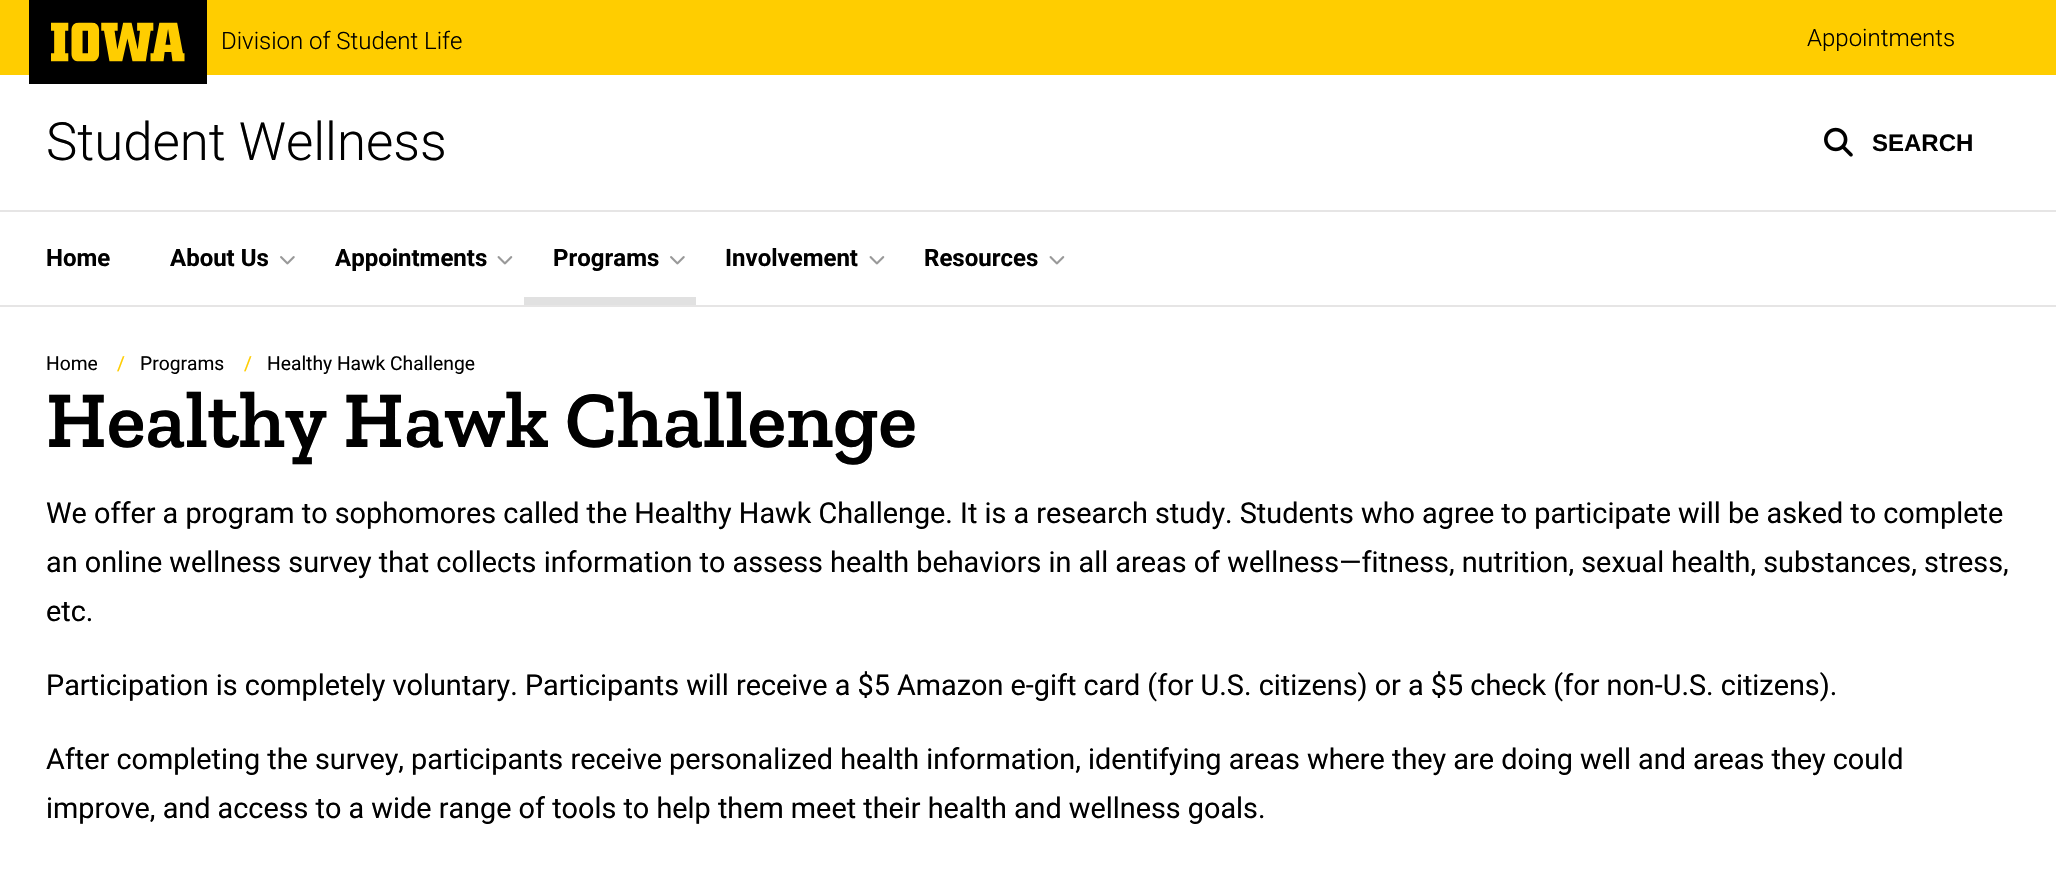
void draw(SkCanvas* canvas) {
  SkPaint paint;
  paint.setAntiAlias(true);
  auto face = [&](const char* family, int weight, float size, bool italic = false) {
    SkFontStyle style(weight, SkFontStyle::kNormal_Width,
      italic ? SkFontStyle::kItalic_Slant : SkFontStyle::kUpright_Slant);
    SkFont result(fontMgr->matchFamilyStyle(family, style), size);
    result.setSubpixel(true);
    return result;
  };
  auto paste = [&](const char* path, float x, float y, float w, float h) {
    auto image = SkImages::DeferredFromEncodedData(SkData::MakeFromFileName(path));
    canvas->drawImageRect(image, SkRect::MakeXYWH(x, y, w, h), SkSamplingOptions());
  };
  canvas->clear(0xffffffff);
  paint.setColor(0xffffcd00);
  canvas->drawRect(SkRect::MakeXYWH(0, 0, 2056, 75), paint);
  paint.setColor(0xffe6e5e5);
  canvas->drawRect(SkRect::MakeXYWH(0, 210, 2056, 2), paint);
  paste("img/1.png", 1824, 127, 29, 30);
  paint.setColor(0xff000000);
  canvas->drawRect(SkRect::MakeXYWH(29, 0, 178, 84), paint);
  paste("img/2.png", 51, 22, 134, 40);
  paint.setColor(0xffe6e5e5);
  canvas->drawRect(SkRect::MakeXYWH(0, 305, 2056, 2), paint);
  paste("img/3.png", 280, 256, 15, 9);
  paste("img/4.png", 497, 256, 16, 9);
  paste("img/3.png", 670, 256, 15, 9);
  paint.setColor(0xffe1e1e1);
  canvas->drawRect(SkRect::MakeXYWH(524, 297, 172, 8), paint);
  paste("img/4.png", 869, 256, 16, 9);
  paste("img/4.png", 1049, 256, 16, 9);
  auto f0 = face("Roboto", 300, 24);
  paint.setColor(0xff000000);
  canvas->drawString("Appointments", 1807, 46, f0, paint);
  auto f1 = face("Roboto", 300, 52.75f);
  canvas->drawString("Student Wellness", 46, 160, f1, paint);
  auto f2 = face("Liberation Sans", 700, 24);
  canvas->drawString("SEARCH", 1872, 151, f2, paint);
  canvas->drawString("Division of Student Life", 221, 49, f0, paint);
  auto f3 = face("Roboto", 700, 24);
  {
    const struct { const char* s; float x, y; } items[] = {
      {"Home", 46, 266},
      {"About Us", 170, 266},
      {"Appointments", 335, 266},
      {"Programs", 553, 266},
      {"Involvement", 725, 266},
      {"Resources", 924, 266},
    };
    for (auto [s, x, y] : items) {
      canvas->drawString(s, x, y, f3, paint);
    }
  }
  auto f4 = face("Roboto", 400, 19.25f);
  canvas->drawString("Home", 46, 370, f4, paint);
  paint.setColor(0xffffcd00);
  canvas->drawString("/", 117, 370, f4, paint);
  paint.setColor(0xff000000);
  canvas->drawString("Programs", 140, 370, f4, paint);
  paint.setColor(0xffffcd00);
  canvas->drawString("/", 244, 370, f4, paint);
  paint.setColor(0xff000000);
  canvas->drawString("Healthy Hawk Challenge", 267, 370, f4, paint);
  auto f5 = face("Zilla Slab", 600, 80.4f);
  canvas->drawString("Healthy Hawk Challenge", 46, 447, f5, paint);
  auto f6 = face("Roboto", 400, 28.8f);
  {
    const struct { const char* s; float x, y; } items[] = {
      {"We offer a program to sophomores called the Healthy Hawk Challenge. It is a research study. Students who agree to participate will be asked to complete", 46, 523},
      {"an online wellness survey that collects information to assess health behaviors in all areas of wellness—fitness, nutrition, sexual health, substances, stress,", 46, 572},
      {"etc.", 46, 621},
      {"Participation is completely voluntary. Participants will receive a $5 Amazon e-gift card (for U.S. citizens) or a $5 check (for non-U.S. citizens).", 46, 695},
      {"After completing the survey, participants receive personalized health information, identifying areas where they are doing well and areas they could", 46, 769},
      {"improve, and access to a wide range of tools to help them meet their health and wellness goals.", 46, 818},
    };
    for (auto [s, x, y] : items) {
      canvas->drawString(s, x, y, f6, paint);
    }
  }
}
